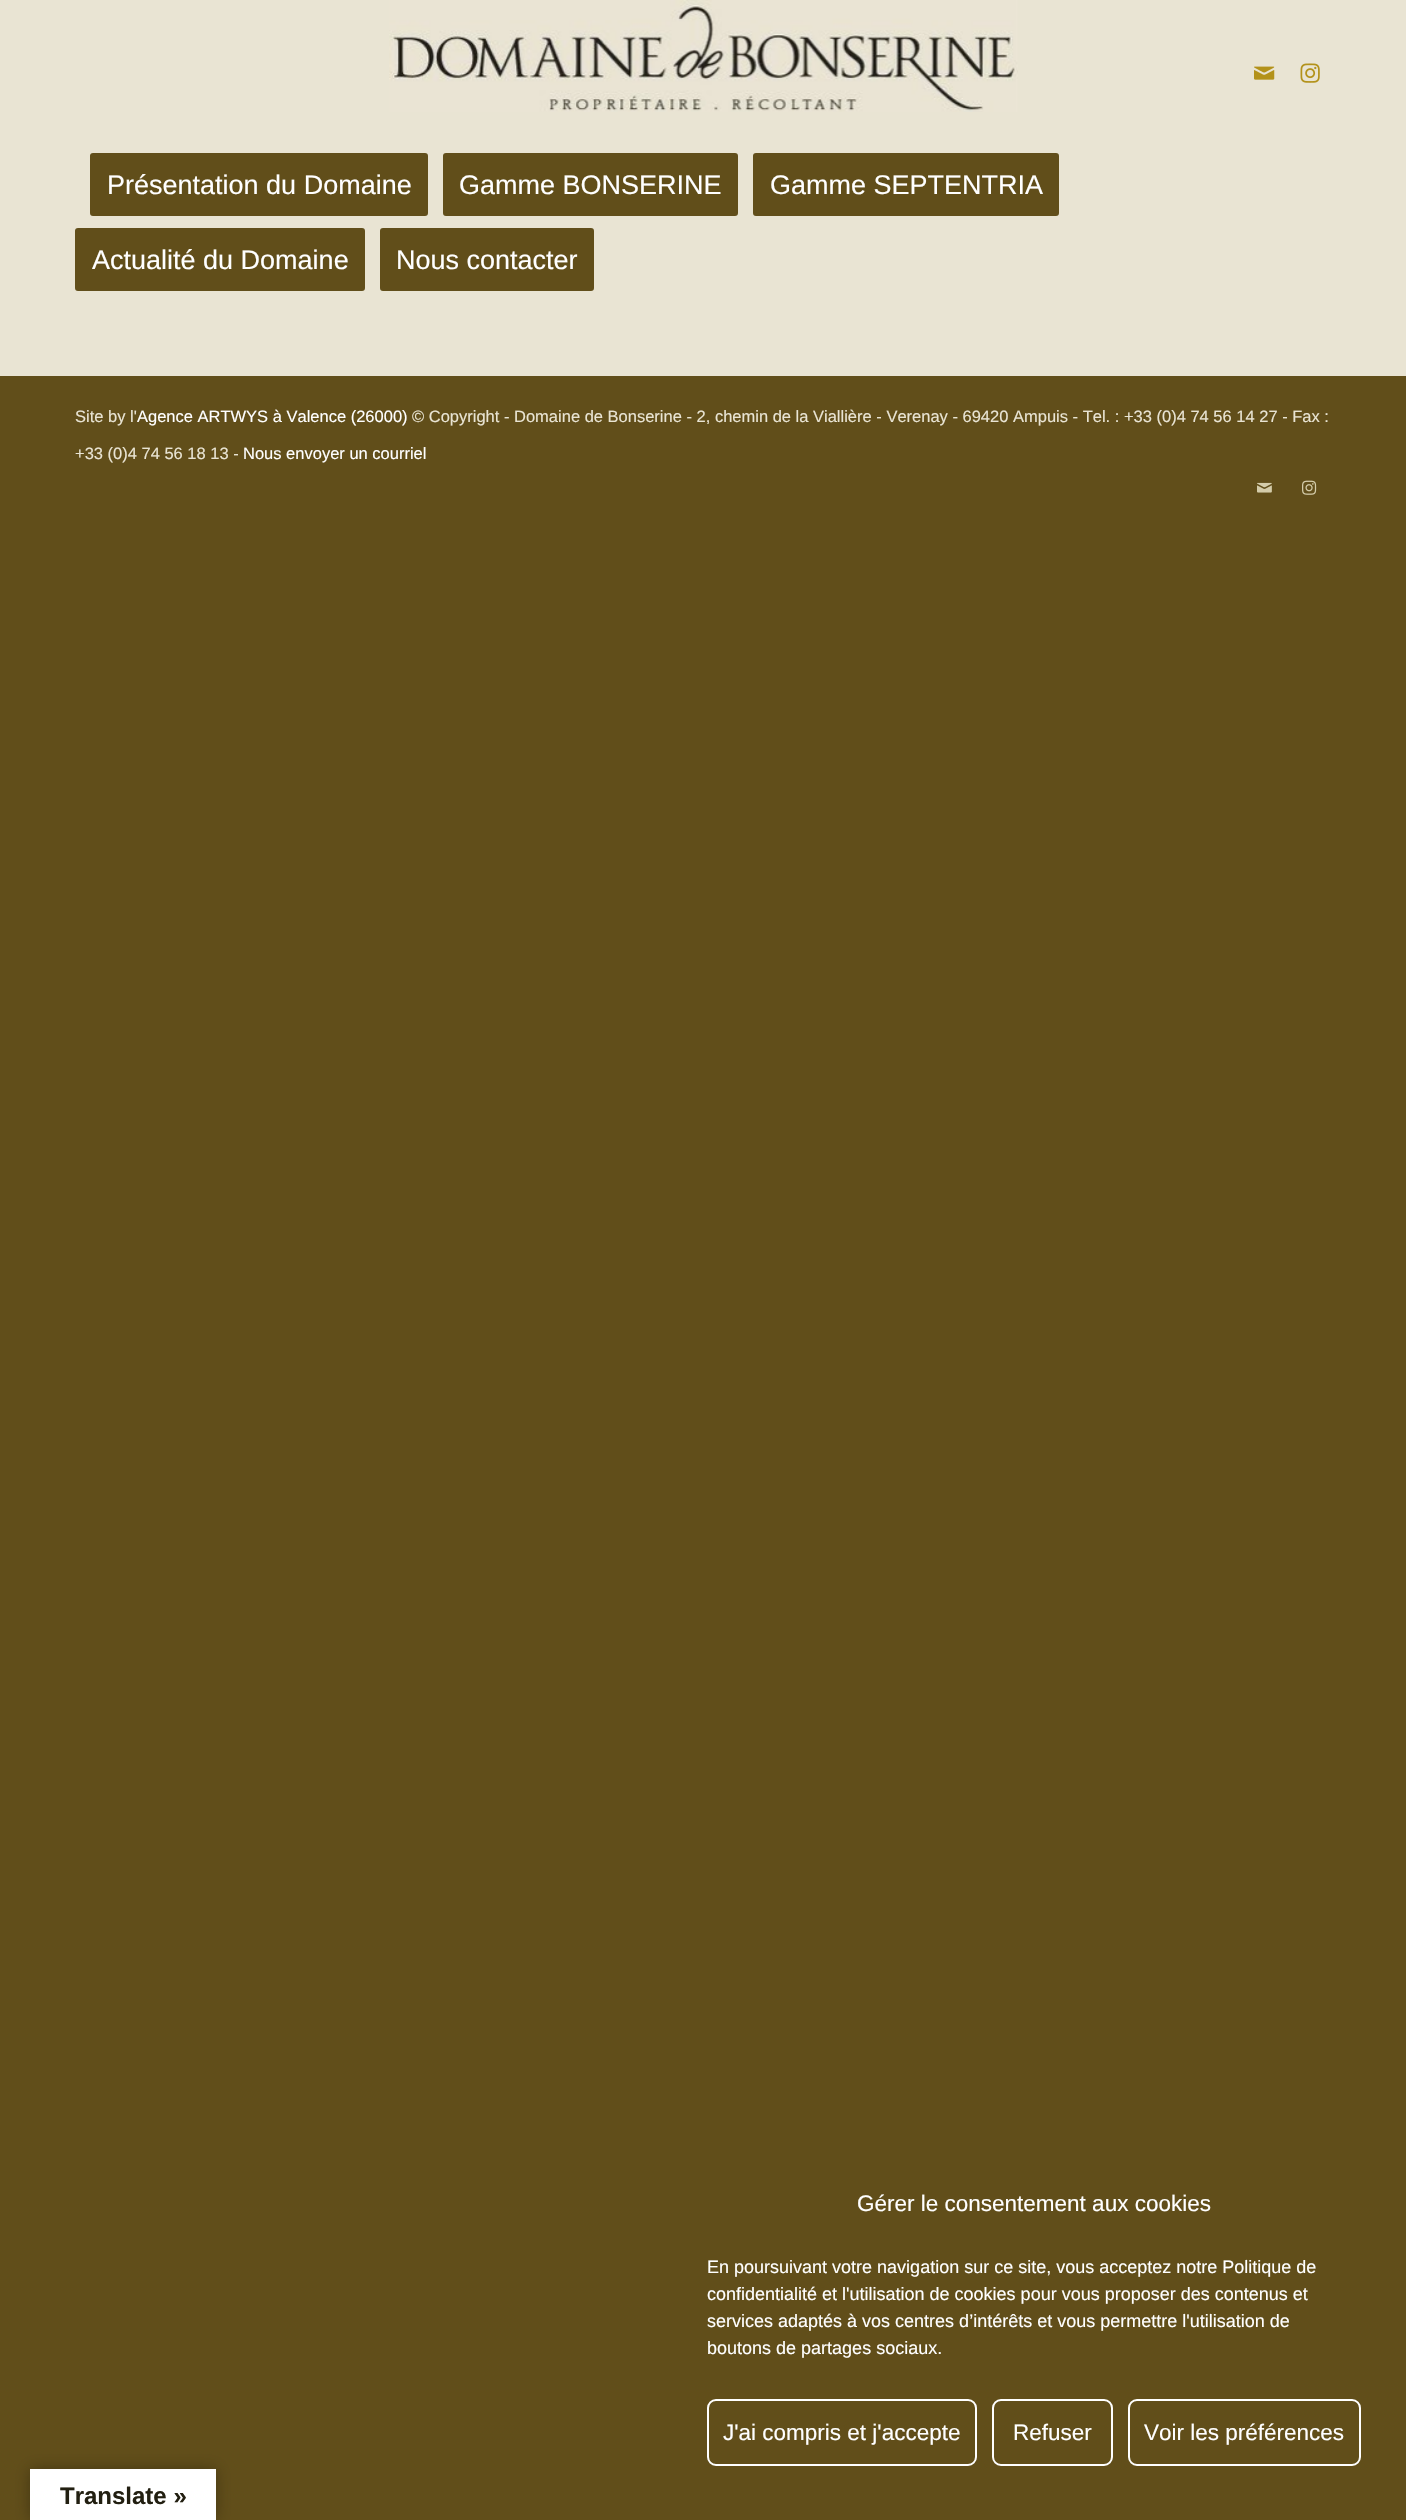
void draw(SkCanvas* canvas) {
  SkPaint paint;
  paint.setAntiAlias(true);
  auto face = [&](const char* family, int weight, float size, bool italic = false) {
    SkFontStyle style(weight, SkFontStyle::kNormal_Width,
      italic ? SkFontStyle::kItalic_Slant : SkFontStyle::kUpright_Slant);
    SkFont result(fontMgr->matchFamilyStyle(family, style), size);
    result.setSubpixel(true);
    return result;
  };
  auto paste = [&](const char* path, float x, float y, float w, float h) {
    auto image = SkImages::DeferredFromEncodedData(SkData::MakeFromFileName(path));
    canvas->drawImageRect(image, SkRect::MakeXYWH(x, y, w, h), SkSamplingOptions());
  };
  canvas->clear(0xff614e1a);
  paint.setColor(0xffe9e4d3);
  canvas->drawRect(SkRect::MakeXYWH(0, 0, 1406, 376), paint);
  paste("img/1.png", 389, 0, 629, 112);
  paste("img/2.png", 1254, 66, 21, 14);
  paste("img/3.png", 1300, 63, 20, 20);
  paint.setColor(0xff614e1a);
  canvas->drawRoundRect(SkRect::MakeXYWH(91.5f, 154.5f, 335, 60), 1.5f, 1.5f, paint);
  paint.setStroke(true);
  paint.setStrokeWidth(3);
  canvas->drawRoundRect(SkRect::MakeXYWH(91.5f, 154.5f, 335, 60), 1.5f, 1.5f, paint);
  paint.setStroke(false);
  canvas->drawRoundRect(SkRect::MakeXYWH(444.5f, 154.5f, 292, 60), 1.5f, 1.5f, paint);
  paint.setStroke(true);
  canvas->drawRoundRect(SkRect::MakeXYWH(444.5f, 154.5f, 292, 60), 1.5f, 1.5f, paint);
  paint.setStroke(false);
  canvas->drawRoundRect(SkRect::MakeXYWH(754.5f, 154.5f, 303, 60), 1.5f, 1.5f, paint);
  paint.setStroke(true);
  canvas->drawRoundRect(SkRect::MakeXYWH(754.5f, 154.5f, 303, 60), 1.5f, 1.5f, paint);
  paint.setStroke(false);
  canvas->drawRoundRect(SkRect::MakeXYWH(76.5f, 229.5f, 287, 60), 1.5f, 1.5f, paint);
  paint.setStroke(true);
  canvas->drawRoundRect(SkRect::MakeXYWH(76.5f, 229.5f, 287, 60), 1.5f, 1.5f, paint);
  paint.setStroke(false);
  canvas->drawRoundRect(SkRect::MakeXYWH(381.5f, 229.5f, 211, 60), 1.5f, 1.5f, paint);
  paint.setStroke(true);
  canvas->drawRoundRect(SkRect::MakeXYWH(381.5f, 229.5f, 211, 60), 1.5f, 1.5f, paint);
  paste("img/4.png", 1257, 482, 15, 11);
  paste("img/5.png", 1302, 480, 15, 15);
  paint.setStrokeWidth(2);
  paint.setColor(0xffffffff);
  canvas->drawRoundRect(SkRect::MakeXYWH(708, 2400, 268, 65), 8, 8, paint);
  canvas->drawRoundRect(SkRect::MakeXYWH(993, 2400, 119, 65), 8, 8, paint);
  canvas->drawRoundRect(SkRect::MakeXYWH(1129, 2400, 231, 65), 8, 8, paint);
  paint.setStroke(false);
  paint.setColor(0x4d000000);
  paint.setMaskFilter(SkMaskFilter::MakeBlur(kNormal_SkBlurStyle, 7));
  canvas->drawRect(SkRect::MakeXYWH(30, 2469, 186, 51), paint);
  paint.setMaskFilter(nullptr);
  paint.setColor(0xffffffff);
  canvas->drawRect(SkRect::MakeXYWH(30, 2469, 186, 51), paint);
  auto f0 = face("Liberation Sans", 400, 27);
  {
    const struct { const char* s; float x, y; } items[] = {
      {"Présentation du Domaine", 107, 194},
      {"Gamme BONSERINE", 459, 194},
      {"Gamme SEPTENTRIA", 770, 194},
      {"Actualité du Domaine", 92, 269},
      {"Nous contacter", 396, 269},
    };
    for (auto [s, x, y] : items) {
      canvas->drawString(s, x, y, f0, paint);
    }
  }
  auto f1 = face("Liberation Sans", 400, 16.5f);
  paint.setColor(0xffe9e4d3);
  canvas->drawString("Site by l'", 75, 422, f1, paint);
  paint.setColor(0xffffffff);
  canvas->drawString("Agence ARTWYS à Valence (26000)", 137, 422, f1, paint);
  paint.setColor(0xffe9e4d3);
  canvas->drawString("© Copyright - Domaine de Bonserine - 2, chemin de la Viallière - Verenay - 69420 Ampuis - Tel. : +33 (0)4 74 56 14 27 - Fax :", 412, 422, f1, paint);
  canvas->drawString("+33 (0)4 74 56 18 13 -", 75, 459, f1, paint);
  paint.setColor(0xffffffff);
  canvas->drawString("Nous envoyer un courriel", 243, 459, f1, paint);
  auto f2 = face("Liberation Sans", 400, 22.5f);
  canvas->drawString("Gérer le consentement aux cookies", 857, 2211, f2, paint);
  auto f3 = face("Liberation Sans", 400, 18);
  {
    const struct { const char* s; float x, y; } items[] = {
      {"En poursuivant votre navigation sur ce site, vous acceptez notre Politique de", 707, 2273},
      {"confidentialité et l'utilisation de cookies pour vous proposer des contenus et", 707, 2300},
      {"services adaptés à vos centres d’intérêts et vous permettre l'utilisation de", 707, 2327},
      {"boutons de partages sociaux.", 707, 2354},
    };
    for (auto [s, x, y] : items) {
      canvas->drawString(s, x, y, f3, paint);
    }
  }
  {
    const struct { const char* s; float x, y; } items[] = {
      {"J'ai compris et j'accepte", 723, 2440},
      {"Refuser", 1013, 2440},
      {"Voir les préférences", 1144, 2440},
    };
    for (auto [s, x, y] : items) {
      canvas->drawString(s, x, y, f2, paint);
    }
  }
  auto f4 = face("Liberation Sans", 700, 24);
  paint.setColor(0xff221f11);
  canvas->drawString("Translate »", 60, 2504, f4, paint);
}
